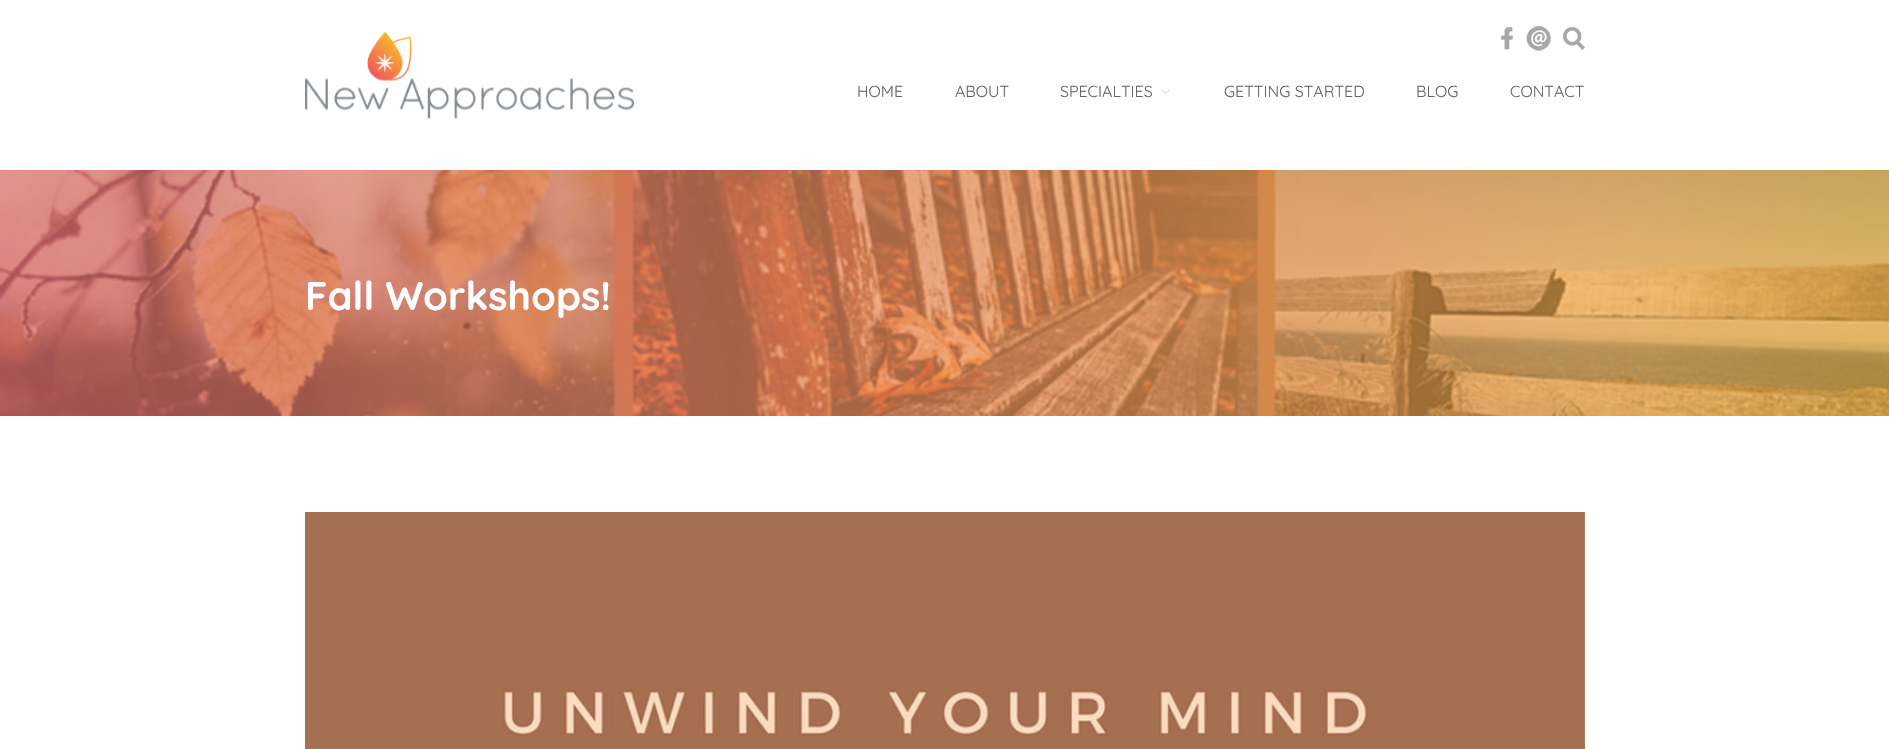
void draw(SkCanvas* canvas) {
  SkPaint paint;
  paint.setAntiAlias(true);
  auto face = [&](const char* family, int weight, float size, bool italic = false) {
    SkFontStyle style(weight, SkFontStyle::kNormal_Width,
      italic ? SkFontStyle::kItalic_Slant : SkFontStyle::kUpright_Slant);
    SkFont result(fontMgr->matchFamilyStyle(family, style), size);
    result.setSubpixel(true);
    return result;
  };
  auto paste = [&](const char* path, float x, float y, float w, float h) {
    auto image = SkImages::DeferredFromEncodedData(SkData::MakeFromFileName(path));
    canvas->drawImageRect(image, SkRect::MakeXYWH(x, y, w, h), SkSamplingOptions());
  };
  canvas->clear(0xffffffff);
  paste("img/1.png", 1501, 27, 13, 23);
  paste("img/2.png", 1526, 26, 25, 25);
  paste("img/3.png", 1563, 27, 22, 23);
  paste("img/4.png", 305, 32, 330, 87);
  paste("img/5.png", 1161, 89, 9, 5);
  paste("img/6.png", 0, 170, 1889, 246);
  paste("img/7.png", 305, 512, 1280, 237);
  auto f0 = face("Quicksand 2", 300, 16);
  paint.setColor(0xff666666);
  {
    const struct { const char* s; float x, y; } items[] = {
      {"HOME", 857, 97},
      {"ABOUT", 955, 97},
      {"SPECIALTIES", 1060, 97},
      {"GETTING STARTED", 1224, 97},
      {"BLOG", 1416, 97},
      {"CONTACT", 1510, 97},
    };
    for (auto [s, x, y] : items) {
      canvas->drawString(s, x, y, f0, paint);
    }
  }
  auto f1 = face("Quicksand", 300, 40);
  paint.setColor(0xffffffff);
  canvas->drawString("Fall Workshops!", 305, 310, f1, paint);
}
